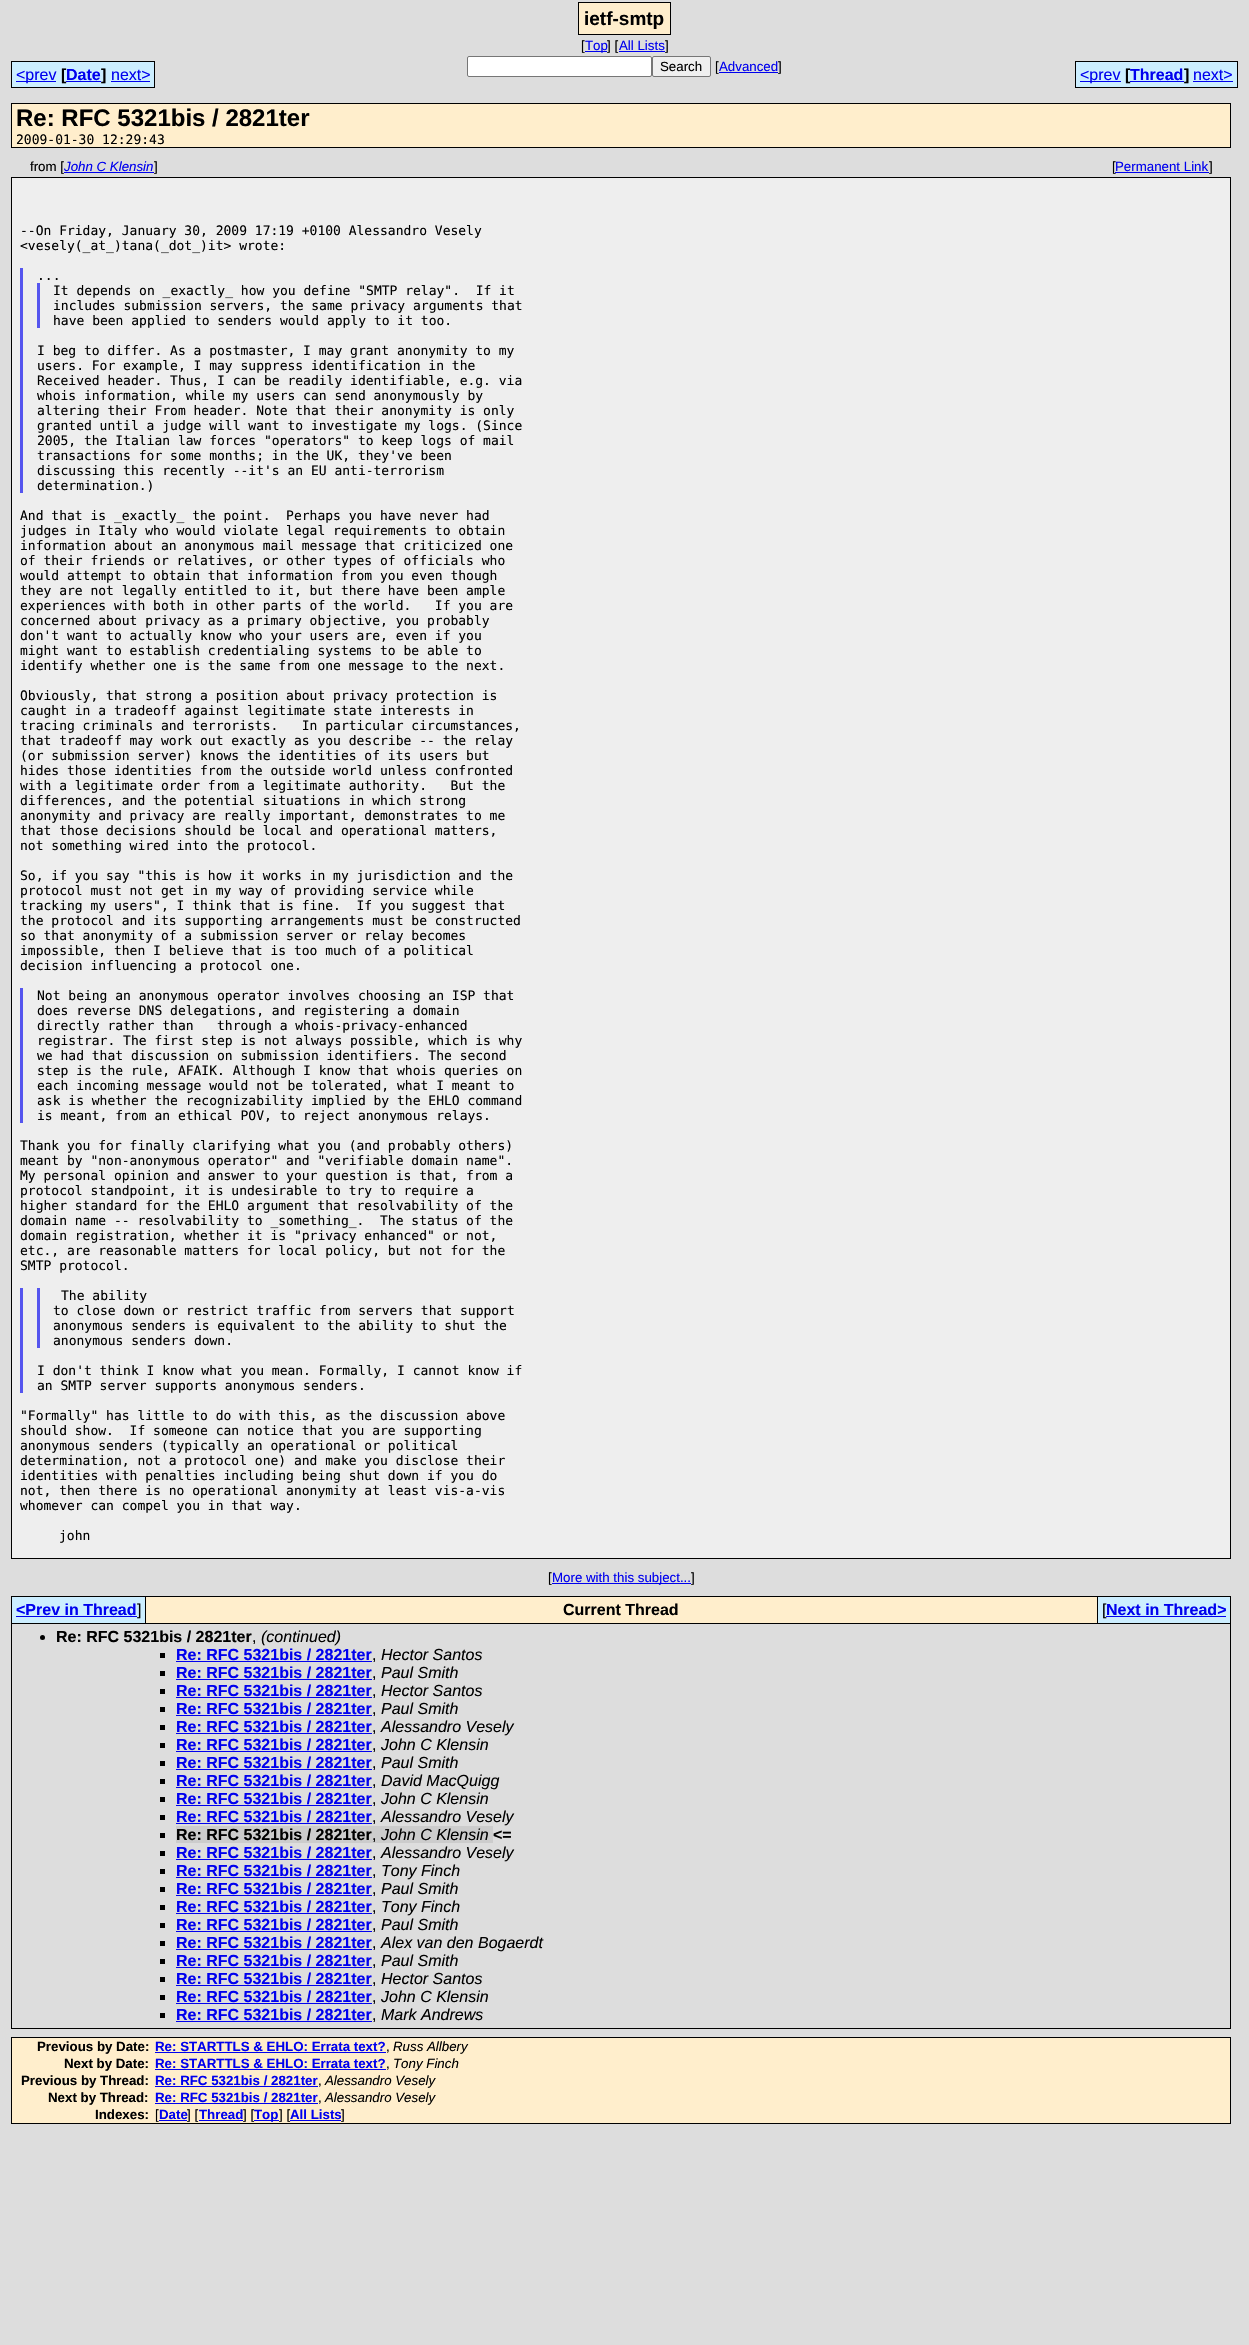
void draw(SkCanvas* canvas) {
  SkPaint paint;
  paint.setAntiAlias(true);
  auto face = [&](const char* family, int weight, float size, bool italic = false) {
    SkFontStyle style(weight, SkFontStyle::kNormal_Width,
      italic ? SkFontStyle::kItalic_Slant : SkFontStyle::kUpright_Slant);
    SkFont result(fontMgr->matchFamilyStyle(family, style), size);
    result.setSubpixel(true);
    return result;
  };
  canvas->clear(0xffdddddd);
  paint.setColor(0xffffeecc);
  canvas->drawRect(SkRect::MakeXYWH(578.5f, 2.5f, 92, 32), paint);
  paint.setStroke(true);
  paint.setStrokeWidth(1);
  paint.setColor(0xff000000);
  canvas->drawRect(SkRect::MakeXYWH(578.5f, 2.5f, 92, 32), paint);
  paint.setStroke(false);
  {
    const struct { float x, y, w, h; SkColor color; } items[] = {
      {585, 51, 22, 1, 0xff0000ee},
      {619, 51, 46, 1, 0xff0000ee},
      {12, 62, 44, 25, 0xffcceeff},
      {11, 61, 45, 1, 0xff000000},
      {11, 87, 45, 1, 0xff000000},
      {11, 61, 1, 27, 0xff000000},
      {56, 61, 10, 27, 0xffcceeff},
      {56, 87, 45, 1, 0xff000000},
      {16, 81, 40, 1, 0xff0000ee},
      {56, 61, 45, 1, 0xff000000},
      {66, 62, 35, 25, 0xffcceeff},
      {101, 61, 10, 27, 0xffcceeff},
      {101, 61, 54, 1, 0xff000000},
      {101, 87, 10, 1, 0xff000000},
      {111, 62, 43, 25, 0xffcceeff},
      {154, 61, 1, 27, 0xff000000},
      {111, 87, 44, 1, 0xff000000},
      {111, 81, 39, 1, 0xff0000ee},
    };
    for (auto [x, y, w, h, color] : items) {
      paint.setColor(color);
      canvas->drawRect(SkRect::MakeXYWH(x, y, w, h), paint);
    }
  }
  paint.setColor(0xffffffff);
  canvas->drawRoundRect(SkRect::MakeXYWH(467.5f, 56.5f, 184, 20), 1.5f, 1.5f, paint);
  paint.setStroke(true);
  paint.setColor(0xff767676);
  canvas->drawRoundRect(SkRect::MakeXYWH(467.5f, 56.5f, 184, 20), 1.5f, 1.5f, paint);
  paint.setStroke(false);
  paint.setColor(0xffefefef);
  canvas->drawRoundRect(SkRect::MakeXYWH(652.5f, 56.5f, 58, 20), 1.5f, 1.5f, paint);
  paint.setStroke(true);
  paint.setColor(0xff767676);
  canvas->drawRoundRect(SkRect::MakeXYWH(652.5f, 56.5f, 58, 20), 1.5f, 1.5f, paint);
  paint.setStroke(false);
  {
    const struct { float x, y, w, h; SkColor color; } items[] = {
      {719, 72, 59, 1, 0xff0000ee},
      {1076, 62, 45, 25, 0xffcceeff},
      {1075, 61, 46, 1, 0xff000000},
      {1075, 87, 46, 1, 0xff000000},
      {1075, 61, 1, 27, 0xff000000},
      {1121, 61, 9, 27, 0xffcceeff},
      {1121, 87, 63, 1, 0xff000000},
      {1080, 81, 41, 1, 0xff0000ee},
      {1121, 61, 63, 1, 0xff000000},
      {1130, 62, 54, 25, 0xffcceeff},
      {1184, 61, 9, 27, 0xffcceeff},
      {1184, 61, 54, 1, 0xff000000},
      {1184, 87, 9, 1, 0xff000000},
      {1193, 62, 44, 25, 0xffcceeff},
      {1237, 61, 1, 27, 0xff000000},
      {1193, 87, 45, 1, 0xff000000},
      {1193, 81, 40, 1, 0xff0000ee},
    };
    for (auto [x, y, w, h, color] : items) {
      paint.setColor(color);
      canvas->drawRect(SkRect::MakeXYWH(x, y, w, h), paint);
    }
  }
  paint.setColor(0xffffeecc);
  canvas->drawRect(SkRect::MakeXYWH(11.5f, 103.5f, 1219, 44), paint);
  paint.setStroke(true);
  paint.setColor(0xff000000);
  canvas->drawRect(SkRect::MakeXYWH(11.5f, 103.5f, 1219, 44), paint);
  paint.setStroke(false);
  paint.setColor(0xff0000ee);
  canvas->drawRect(SkRect::MakeXYWH(64, 172, 90, 1), paint);
  paint.setColor(0xffeeeeee);
  canvas->drawRect(SkRect::MakeXYWH(11.5f, 177.5f, 1219, 1381), paint);
  paint.setStroke(true);
  paint.setColor(0xff000000);
  canvas->drawRect(SkRect::MakeXYWH(11.5f, 177.5f, 1219, 1381), paint);
  paint.setStroke(false);
  {
    const struct { float x, y, w, h; SkColor color; } items[] = {
      {20, 268, 3, 225, 0xff5555ee},
      {37, 283, 3, 45, 0xff5555ee},
      {20, 988, 3, 135, 0xff5555ee},
      {20, 1288, 3, 105, 0xff5555ee},
      {37, 1288, 3, 60, 0xff5555ee},
      {552, 1583, 139, 1, 0xff0000ee},
      {11, 1596, 1220, 433, 0xff000000},
      {12, 1597, 133, 26, 0xffcceeff},
      {16, 1616, 121, 1, 0xff0000ee},
      {146, 1597, 951, 26, 0xffffeecc},
      {1098, 1597, 132, 26, 0xffcceeff},
      {1106, 1616, 120, 1, 0xff0000ee},
      {12, 1624, 1218, 404, 0xffdddddd},
    };
    for (auto [x, y, w, h, color] : items) {
      paint.setColor(color);
      canvas->drawRect(SkRect::MakeXYWH(x, y, w, h), paint);
    }
  }
  paint.setColor(0xff000000);
  canvas->drawCircle(42.5f, 1637.5f, 2.5f, paint);
  {
    const struct { float x, y, w, h; SkColor color; } items[] = {
      {160, 1653, 5, 5, 0xff000000},
      {176, 1661, 196, 1, 0xff0000ee},
      {160, 1671, 5, 5, 0xff000000},
      {176, 1679, 196, 1, 0xff0000ee},
      {160, 1689, 5, 5, 0xff000000},
      {176, 1697, 196, 1, 0xff0000ee},
      {160, 1707, 5, 5, 0xff000000},
      {176, 1715, 196, 1, 0xff0000ee},
      {160, 1725, 5, 5, 0xff000000},
      {176, 1733, 196, 1, 0xff0000ee},
      {160, 1743, 5, 5, 0xff000000},
      {176, 1751, 196, 1, 0xff0000ee},
      {160, 1761, 5, 5, 0xff000000},
      {176, 1769, 196, 1, 0xff0000ee},
      {160, 1779, 5, 5, 0xff000000},
      {176, 1787, 196, 1, 0xff0000ee},
      {160, 1797, 5, 5, 0xff000000},
      {176, 1805, 196, 1, 0xff0000ee},
      {160, 1815, 5, 5, 0xff000000},
      {176, 1823, 196, 1, 0xff0000ee},
      {160, 1833, 5, 5, 0xff000000},
      {176, 1826, 317, 17, 0xffcccccc},
      {160, 1851, 5, 5, 0xff000000},
      {176, 1859, 196, 1, 0xff0000ee},
      {160, 1869, 5, 5, 0xff000000},
      {176, 1877, 196, 1, 0xff0000ee},
      {160, 1887, 5, 5, 0xff000000},
      {176, 1895, 196, 1, 0xff0000ee},
      {160, 1905, 5, 5, 0xff000000},
      {176, 1913, 196, 1, 0xff0000ee},
      {160, 1923, 5, 5, 0xff000000},
      {176, 1931, 196, 1, 0xff0000ee},
      {160, 1941, 5, 5, 0xff000000},
      {176, 1949, 196, 1, 0xff0000ee},
      {160, 1959, 5, 5, 0xff000000},
      {176, 1967, 196, 1, 0xff0000ee},
      {160, 1977, 5, 5, 0xff000000},
      {176, 1985, 196, 1, 0xff0000ee},
      {160, 1995, 5, 5, 0xff000000},
      {176, 2003, 196, 1, 0xff0000ee},
      {160, 2013, 5, 5, 0xff000000},
      {176, 2021, 196, 1, 0xff0000ee},
    };
    for (auto [x, y, w, h, color] : items) {
      paint.setColor(color);
      canvas->drawRect(SkRect::MakeXYWH(x, y, w, h), paint);
    }
  }
  paint.setColor(0xffffeecc);
  canvas->drawRect(SkRect::MakeXYWH(11.5f, 2037.5f, 1219, 86), paint);
  paint.setStroke(true);
  paint.setColor(0xff000000);
  canvas->drawRect(SkRect::MakeXYWH(11.5f, 2037.5f, 1219, 86), paint);
  paint.setStroke(false);
  {
    const struct { float x, y, w, h; SkColor color; } items[] = {
      {155, 2052, 231, 1, 0xff0000ee},
      {155, 2069, 231, 1, 0xff0000ee},
      {155, 2086, 163, 1, 0xff0000ee},
      {155, 2103, 163, 1, 0xff0000ee},
      {159, 2120, 28, 1, 0xff0000ee},
      {199, 2120, 44, 1, 0xff0000ee},
      {254, 2120, 25, 1, 0xff0000ee},
      {290, 2120, 51, 1, 0xff0000ee},
    };
    for (auto [x, y, w, h, color] : items) {
      paint.setColor(color);
      canvas->drawRect(SkRect::MakeXYWH(x, y, w, h), paint);
    }
  }
  auto f0 = face("Liberation Sans", 700, 19);
  paint.setColor(0xff000000);
  canvas->drawString("ietf-smtp", 584, 25, f0, paint);
  auto f1 = face("Liberation Sans", 400, 13.3f);
  canvas->drawString("[", 581, 50, f1, paint);
  paint.setColor(0xff0000ee);
  canvas->drawString("Top", 585, 50, f1, paint);
  paint.setColor(0xff000000);
  canvas->drawString("] [", 607, 50, f1, paint);
  paint.setColor(0xff0000ee);
  canvas->drawString("All Lists", 619, 50, f1, paint);
  paint.setColor(0xff000000);
  canvas->drawString("]", 665, 50, f1, paint);
  auto f2 = face("Liberation Sans", 400, 16);
  paint.setColor(0xff0000ee);
  canvas->drawString("<prev", 16, 80, f2, paint);
  auto f3 = face("Liberation Sans", 700, 16);
  paint.setColor(0xff000000);
  canvas->drawString("[", 61, 80, f3, paint);
  paint.setColor(0xff0000ee);
  canvas->drawRect(SkRect::MakeXYWH(66, 81, 35, 1), paint);
  canvas->drawString("Date", 66, 80, f3, paint);
  paint.setColor(0xff000000);
  canvas->drawString("]", 101, 80, f3, paint);
  paint.setColor(0xff0000ee);
  canvas->drawString("next>", 111, 80, f2, paint);
  paint.setColor(0xff000000);
  canvas->drawString("Search", 660, 71, f1, paint);
  canvas->drawString("[", 715, 71, f1, paint);
  paint.setColor(0xff0000ee);
  canvas->drawString("Advanced", 719, 71, f1, paint);
  paint.setColor(0xff000000);
  canvas->drawString("]", 778, 71, f1, paint);
  paint.setColor(0xff0000ee);
  canvas->drawString("<prev", 1080, 80, f2, paint);
  paint.setColor(0xff000000);
  canvas->drawString("[", 1125, 80, f3, paint);
  paint.setColor(0xff0000ee);
  canvas->drawRect(SkRect::MakeXYWH(1130, 81, 54, 1), paint);
  canvas->drawString("Thread", 1130, 80, f3, paint);
  paint.setColor(0xff000000);
  canvas->drawString("]", 1184, 80, f3, paint);
  paint.setColor(0xff0000ee);
  canvas->drawString("next>", 1193, 80, f2, paint);
  auto f4 = face("Liberation Sans", 700, 24);
  paint.setColor(0xff000000);
  canvas->drawString("Re: RFC 5321bis / 2821ter", 16, 126, f4, paint);
  auto f5 = face("DejaVu Sans Mono", 400, 13);
  canvas->drawString("2009-01-30 12:29:43", 16, 144, f5, paint);
  canvas->drawString("from [", 30, 171, f1, paint);
  auto f6 = face("Liberation Sans", 400, 13.3f, true);
  paint.setColor(0xff0000ee);
  canvas->drawString("John C Klensin", 64, 171, f6, paint);
  paint.setColor(0xff000000);
  canvas->drawString("]", 154, 171, f1, paint);
  canvas->drawString("[", 1112, 171, f1, paint);
  paint.setColor(0xff0000ee);
  canvas->drawRect(SkRect::MakeXYWH(1115, 172, 94, 1), paint);
  canvas->drawString("Permanent Link", 1115, 171, f1, paint);
  paint.setColor(0xff000000);
  canvas->drawString("]", 1209, 171, f1, paint);
  {
    const struct { const char* s; float x, y; } items[] = {
      {"--On Friday, January 30, 2009 17:19 +0100 Alessandro Vesely", 20, 235},
      {"<vesely(_at_)tana(_dot_)it> wrote:", 20, 250},
      {"...", 37, 280},
      {"It depends on _exactly_ how you define \"SMTP relay\".  If it", 53, 295},
      {"includes submission servers, the same privacy arguments that", 53, 310},
      {"have been applied to senders would apply to it too.", 53, 325},
      {"I beg to differ. As a postmaster, I may grant anonymity to my", 37, 355},
      {"users. For example, I may suppress identification in the", 37, 370},
      {"Received header. Thus, I can be readily identifiable, e.g. via", 37, 385},
      {"whois information, while my users can send anonymously by", 37, 400},
      {"altering their From header. Note that their anonymity is only", 37, 415},
      {"granted until a judge will want to investigate my logs. (Since", 37, 430},
      {"2005, the Italian law forces \"operators\" to keep logs of mail", 37, 445},
      {"transactions for some months; in the UK, they've been", 37, 460},
      {"discussing this recently --it's an EU anti-terrorism", 37, 475},
      {"determination.)", 37, 490},
      {"And that is _exactly_ the point.  Perhaps you have never had", 20, 520},
      {"judges in Italy who would violate legal requirements to obtain", 20, 535},
      {"information about an anonymous mail message that criticized one", 20, 550},
      {"of their friends or relatives, or other types of officials who", 20, 565},
      {"would attempt to obtain that information from you even though", 20, 580},
      {"they are not legally entitled to it, but there have been ample", 20, 595},
      {"experiences with both in other parts of the world.   If you are", 20, 610},
      {"concerned about privacy as a primary objective, you probably", 20, 625},
      {"don't want to actually know who your users are, even if you", 20, 640},
      {"might want to establish credentialing systems to be able to", 20, 655},
      {"identify whether one is the same from one message to the next.", 20, 670},
      {"Obviously, that strong a position about privacy protection is", 20, 700},
      {"caught in a tradeoff against legitimate state interests in", 20, 715},
      {"tracing criminals and terrorists.   In particular circumstances,", 20, 730},
      {"that tradeoff may work out exactly as you describe -- the relay", 20, 745},
      {"(or submission server) knows the identities of its users but", 20, 760},
      {"hides those identities from the outside world unless confronted", 20, 775},
      {"with a legitimate order from a legitimate authority.   But the", 20, 790},
      {"differences, and the potential situations in which strong", 20, 805},
      {"anonymity and privacy are really important, demonstrates to me", 20, 820},
      {"that those decisions should be local and operational matters,", 20, 835},
      {"not something wired into the protocol.", 20, 850},
      {"So, if you say \"this is how it works in my jurisdiction and the", 20, 880},
      {"protocol must not get in my way of providing service while", 20, 895},
      {"tracking my users\", I think that is fine.  If you suggest that", 20, 910},
      {"the protocol and its supporting arrangements must be constructed", 20, 925},
      {"so that anonymity of a submission server or relay becomes", 20, 940},
      {"impossible, then I believe that is too much of a political", 20, 955},
      {"decision influencing a protocol one.", 20, 970},
      {"Not being an anonymous operator involves choosing an ISP that", 37, 1000},
      {"does reverse DNS delegations, and registering a domain", 37, 1015},
      {"directly rather than   through a whois-privacy-enhanced", 37, 1030},
      {"registrar. The first step is not always possible, which is why", 37, 1045},
      {"we had that discussion on submission identifiers. The second", 37, 1060},
      {"step is the rule, AFAIK. Although I know that whois queries on", 37, 1075},
      {"each incoming message would not be tolerated, what I meant to", 37, 1090},
      {"ask is whether the recognizability implied by the EHLO command", 37, 1105},
      {"is meant, from an ethical POV, to reject anonymous relays.", 37, 1120},
      {"Thank you for finally clarifying what you (and probably others)", 20, 1150},
      {"meant by \"non-anonymous operator\" and \"verifiable domain name\".", 20, 1165},
      {"My personal opinion and answer to your question is that, from a", 20, 1180},
      {"protocol standpoint, it is undesirable to try to require a", 20, 1195},
      {"higher standard for the EHLO argument that resolvability of the", 20, 1210},
      {"domain name -- resolvability to _something_.  The status of the", 20, 1225},
      {"domain registration, whether it is \"privacy enhanced\" or not,", 20, 1240},
      {"etc., are reasonable matters for local policy, but not for the", 20, 1255},
      {"SMTP protocol.", 20, 1270},
      {"The ability", 61, 1300},
      {"to close down or restrict traffic from servers that support", 53, 1315},
      {"anonymous senders is equivalent to the ability to shut the", 53, 1330},
      {"anonymous senders down.", 53, 1345},
      {"I don't think I know what you mean. Formally, I cannot know if", 37, 1375},
      {"an SMTP server supports anonymous senders.", 37, 1390},
      {"\"Formally\" has little to do with this, as the discussion above", 20, 1420},
      {"should show.  If someone can notice that you are supporting", 20, 1435},
      {"anonymous senders (typically an operational or political", 20, 1450},
      {"determination, not a protocol one) and make you disclose their", 20, 1465},
      {"identities with penalties including being shut down if you do", 20, 1480},
      {"not, then there is no operational anonymity at least vis-a-vis", 20, 1495},
      {"whomever can compel you in that way.", 20, 1510},
      {"john", 59, 1540},
    };
    for (auto [s, x, y] : items) {
      canvas->drawString(s, x, y, f5, paint);
    }
  }
  canvas->drawString("[", 548, 1582, f1, paint);
  paint.setColor(0xff0000ee);
  canvas->drawString("More with this subject...", 552, 1582, f1, paint);
  paint.setColor(0xff000000);
  canvas->drawString("]", 691, 1582, f1, paint);
  paint.setColor(0xff0000ee);
  canvas->drawString("<Prev in Thread", 16, 1615, f3, paint);
  paint.setColor(0xff000000);
  canvas->drawString("]", 137, 1615, f2, paint);
  canvas->drawString("Current Thread", 563, 1615, f3, paint);
  canvas->drawString("[", 1102, 1615, f2, paint);
  paint.setColor(0xff0000ee);
  canvas->drawString("Next in Thread>", 1106, 1615, f3, paint);
  paint.setColor(0xff000000);
  canvas->drawString("Re: RFC 5321bis / 2821ter", 56, 1642, f3, paint);
  auto f7 = face("Liberation Sans", 400, 16, true);
  canvas->drawString("(continued)", 261, 1642, f7, paint);
  canvas->drawString(",", 252, 1642, f2, paint);
  paint.setColor(0xff0000ee);
  canvas->drawString("Re: RFC 5321bis / 2821ter", 176, 1660, f3, paint);
  paint.setColor(0xff000000);
  canvas->drawString("Hector Santos", 381, 1660, f7, paint);
  canvas->drawString(",", 372, 1660, f2, paint);
  paint.setColor(0xff0000ee);
  canvas->drawString("Re: RFC 5321bis / 2821ter", 176, 1678, f3, paint);
  paint.setColor(0xff000000);
  canvas->drawString("Paul Smith", 381, 1678, f7, paint);
  canvas->drawString(",", 372, 1678, f2, paint);
  paint.setColor(0xff0000ee);
  canvas->drawString("Re: RFC 5321bis / 2821ter", 176, 1696, f3, paint);
  paint.setColor(0xff000000);
  canvas->drawString("Hector Santos", 381, 1696, f7, paint);
  canvas->drawString(",", 372, 1696, f2, paint);
  paint.setColor(0xff0000ee);
  canvas->drawString("Re: RFC 5321bis / 2821ter", 176, 1714, f3, paint);
  paint.setColor(0xff000000);
  canvas->drawString("Paul Smith", 381, 1714, f7, paint);
  canvas->drawString(",", 372, 1714, f2, paint);
  paint.setColor(0xff0000ee);
  canvas->drawString("Re: RFC 5321bis / 2821ter", 176, 1732, f3, paint);
  paint.setColor(0xff000000);
  canvas->drawString("Alessandro Vesely", 381, 1732, f7, paint);
  canvas->drawString(",", 372, 1732, f2, paint);
  paint.setColor(0xff0000ee);
  canvas->drawString("Re: RFC 5321bis / 2821ter", 176, 1750, f3, paint);
  paint.setColor(0xff000000);
  canvas->drawString("John C Klensin", 381, 1750, f7, paint);
  canvas->drawString(",", 372, 1750, f2, paint);
  paint.setColor(0xff0000ee);
  canvas->drawString("Re: RFC 5321bis / 2821ter", 176, 1768, f3, paint);
  paint.setColor(0xff000000);
  canvas->drawString("Paul Smith", 381, 1768, f7, paint);
  canvas->drawString(",", 372, 1768, f2, paint);
  paint.setColor(0xff0000ee);
  canvas->drawString("Re: RFC 5321bis / 2821ter", 176, 1786, f3, paint);
  paint.setColor(0xff000000);
  canvas->drawString("David MacQuigg", 381, 1786, f7, paint);
  canvas->drawString(",", 372, 1786, f2, paint);
  paint.setColor(0xff0000ee);
  canvas->drawString("Re: RFC 5321bis / 2821ter", 176, 1804, f3, paint);
  paint.setColor(0xff000000);
  canvas->drawString("John C Klensin", 381, 1804, f7, paint);
  canvas->drawString(",", 372, 1804, f2, paint);
  paint.setColor(0xff0000ee);
  canvas->drawString("Re: RFC 5321bis / 2821ter", 176, 1822, f3, paint);
  paint.setColor(0xff000000);
  canvas->drawString("Alessandro Vesely", 381, 1822, f7, paint);
  canvas->drawString(",", 372, 1822, f2, paint);
  canvas->drawString("Re: RFC 5321bis / 2821ter", 176, 1840, f3, paint);
  canvas->drawString("John C Klensin", 381, 1840, f7, paint);
  canvas->drawString("<=", 493, 1840, f3, paint);
  canvas->drawString(",", 372, 1840, f2, paint);
  paint.setColor(0xff0000ee);
  canvas->drawString("Re: RFC 5321bis / 2821ter", 176, 1858, f3, paint);
  paint.setColor(0xff000000);
  canvas->drawString("Alessandro Vesely", 381, 1858, f7, paint);
  canvas->drawString(",", 372, 1858, f2, paint);
  paint.setColor(0xff0000ee);
  canvas->drawString("Re: RFC 5321bis / 2821ter", 176, 1876, f3, paint);
  paint.setColor(0xff000000);
  canvas->drawString("Tony Finch", 381, 1876, f7, paint);
  canvas->drawString(",", 372, 1876, f2, paint);
  paint.setColor(0xff0000ee);
  canvas->drawString("Re: RFC 5321bis / 2821ter", 176, 1894, f3, paint);
  paint.setColor(0xff000000);
  canvas->drawString("Paul Smith", 381, 1894, f7, paint);
  canvas->drawString(",", 372, 1894, f2, paint);
  paint.setColor(0xff0000ee);
  canvas->drawString("Re: RFC 5321bis / 2821ter", 176, 1912, f3, paint);
  paint.setColor(0xff000000);
  canvas->drawString("Tony Finch", 381, 1912, f7, paint);
  canvas->drawString(",", 372, 1912, f2, paint);
  paint.setColor(0xff0000ee);
  canvas->drawString("Re: RFC 5321bis / 2821ter", 176, 1930, f3, paint);
  paint.setColor(0xff000000);
  canvas->drawString("Paul Smith", 381, 1930, f7, paint);
  canvas->drawString(",", 372, 1930, f2, paint);
  paint.setColor(0xff0000ee);
  canvas->drawString("Re: RFC 5321bis / 2821ter", 176, 1948, f3, paint);
  paint.setColor(0xff000000);
  canvas->drawString("Alex van den Bogaerdt", 381, 1948, f7, paint);
  canvas->drawString(",", 372, 1948, f2, paint);
  paint.setColor(0xff0000ee);
  canvas->drawString("Re: RFC 5321bis / 2821ter", 176, 1966, f3, paint);
  paint.setColor(0xff000000);
  canvas->drawString("Paul Smith", 381, 1966, f7, paint);
  canvas->drawString(",", 372, 1966, f2, paint);
  paint.setColor(0xff0000ee);
  canvas->drawString("Re: RFC 5321bis / 2821ter", 176, 1984, f3, paint);
  paint.setColor(0xff000000);
  canvas->drawString("Hector Santos", 381, 1984, f7, paint);
  canvas->drawString(",", 372, 1984, f2, paint);
  paint.setColor(0xff0000ee);
  canvas->drawString("Re: RFC 5321bis / 2821ter", 176, 2002, f3, paint);
  paint.setColor(0xff000000);
  canvas->drawString("John C Klensin", 381, 2002, f7, paint);
  canvas->drawString(",", 372, 2002, f2, paint);
  paint.setColor(0xff0000ee);
  canvas->drawString("Re: RFC 5321bis / 2821ter", 176, 2020, f3, paint);
  paint.setColor(0xff000000);
  canvas->drawString("Mark Andrews", 381, 2020, f7, paint);
  canvas->drawString(",", 372, 2020, f2, paint);
  auto f8 = face("Liberation Sans", 700, 13.3f);
  canvas->drawString("Previous by Date:", 37, 2051, f8, paint);
  paint.setColor(0xff0000ee);
  canvas->drawString("Re: STARTTLS & EHLO: Errata text?", 155, 2051, f8, paint);
  paint.setColor(0xff000000);
  canvas->drawString(",", 386, 2051, f1, paint);
  canvas->drawString("Russ Allbery", 393, 2051, f6, paint);
  canvas->drawString("Next by Date:", 64, 2068, f8, paint);
  paint.setColor(0xff0000ee);
  canvas->drawString("Re: STARTTLS & EHLO: Errata text?", 155, 2068, f8, paint);
  paint.setColor(0xff000000);
  canvas->drawString(",", 386, 2068, f1, paint);
  canvas->drawString("Tony Finch", 393, 2068, f6, paint);
  canvas->drawString("Previous by Thread:", 21, 2085, f8, paint);
  paint.setColor(0xff0000ee);
  canvas->drawString("Re: RFC 5321bis / 2821ter", 155, 2085, f8, paint);
  paint.setColor(0xff000000);
  canvas->drawString(",", 318, 2085, f1, paint);
  canvas->drawString("Alessandro Vesely", 325, 2085, f6, paint);
  canvas->drawString("Next by Thread:", 48, 2102, f8, paint);
  paint.setColor(0xff0000ee);
  canvas->drawString("Re: RFC 5321bis / 2821ter", 155, 2102, f8, paint);
  paint.setColor(0xff000000);
  canvas->drawString(",", 318, 2102, f1, paint);
  canvas->drawString("Alessandro Vesely", 325, 2102, f6, paint);
  canvas->drawString("Indexes:", 95, 2119, f8, paint);
  canvas->drawString("[", 155, 2119, f1, paint);
  paint.setColor(0xff0000ee);
  canvas->drawString("Date", 159, 2119, f8, paint);
  paint.setColor(0xff000000);
  canvas->drawString("] [", 187, 2119, f1, paint);
  paint.setColor(0xff0000ee);
  canvas->drawString("Thread", 199, 2119, f8, paint);
  paint.setColor(0xff000000);
  canvas->drawString("] [", 243, 2119, f1, paint);
  paint.setColor(0xff0000ee);
  canvas->drawString("Top", 254, 2119, f8, paint);
  paint.setColor(0xff000000);
  canvas->drawString("] [", 279, 2119, f1, paint);
  paint.setColor(0xff0000ee);
  canvas->drawString("All Lists", 290, 2119, f8, paint);
  paint.setColor(0xff000000);
  canvas->drawString("]", 341, 2119, f1, paint);
}
